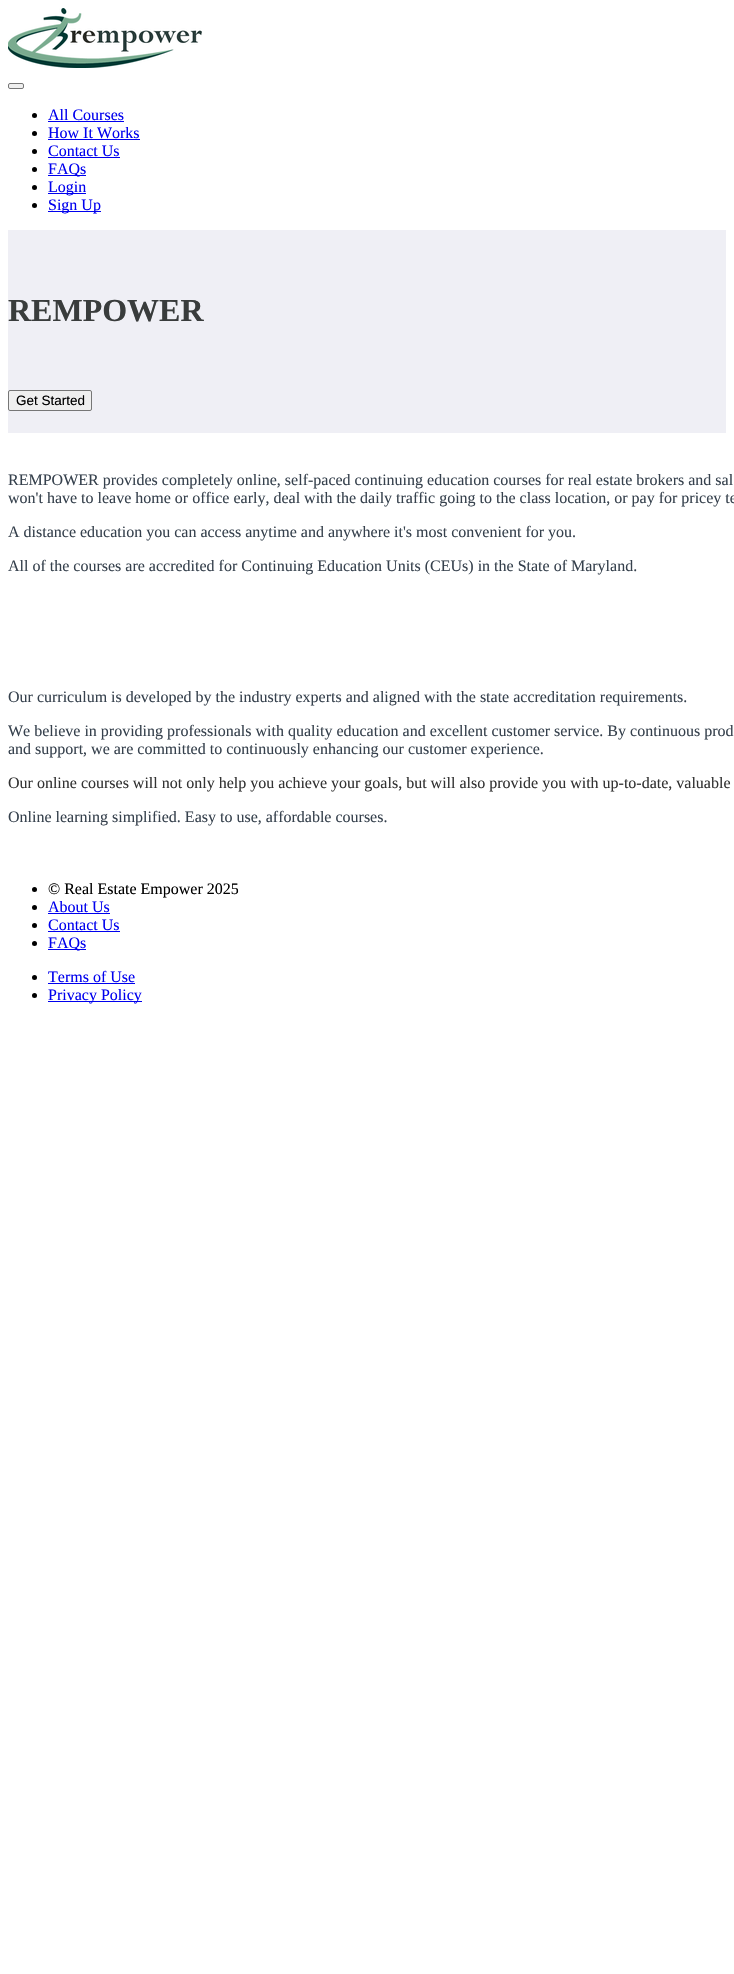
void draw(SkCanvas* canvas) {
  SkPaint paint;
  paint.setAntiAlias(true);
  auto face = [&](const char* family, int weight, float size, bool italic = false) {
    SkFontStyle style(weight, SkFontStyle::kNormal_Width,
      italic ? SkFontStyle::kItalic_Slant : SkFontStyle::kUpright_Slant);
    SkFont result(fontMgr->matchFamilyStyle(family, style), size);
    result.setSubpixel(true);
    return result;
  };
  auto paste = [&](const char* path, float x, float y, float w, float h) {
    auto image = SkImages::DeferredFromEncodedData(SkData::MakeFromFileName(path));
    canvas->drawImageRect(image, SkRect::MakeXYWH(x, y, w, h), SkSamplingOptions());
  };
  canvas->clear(0xffffffff);
  paste("img/1.png", 8, 8, 194, 60);
  paint.setColor(0xffefefef);
  canvas->drawRoundRect(SkRect::MakeXYWH(8.5f, 83.5f, 15, 5), 1.5f, 1.5f, paint);
  paint.setStroke(true);
  paint.setStrokeWidth(1);
  paint.setColor(0xff767676);
  canvas->drawRoundRect(SkRect::MakeXYWH(8.5f, 83.5f, 15, 5), 1.5f, 1.5f, paint);
  paint.setStroke(false);
  paint.setColor(0xff000000);
  canvas->drawCircle(34.5f, 115.5f, 2.5f, paint);
  paint.setColor(0xff0000ee);
  canvas->drawRect(SkRect::MakeXYWH(48, 121, 76, 1), paint);
  paint.setColor(0xff000000);
  canvas->drawCircle(34.5f, 133.5f, 2.5f, paint);
  paint.setColor(0xff0000ee);
  canvas->drawRect(SkRect::MakeXYWH(48, 139, 92, 1), paint);
  paint.setColor(0xff000000);
  canvas->drawCircle(34.5f, 151.5f, 2.5f, paint);
  paint.setColor(0xff0000ee);
  canvas->drawRect(SkRect::MakeXYWH(48, 157, 72, 1), paint);
  paint.setColor(0xff000000);
  canvas->drawCircle(34.5f, 169.5f, 2.5f, paint);
  paint.setColor(0xff0000ee);
  canvas->drawRect(SkRect::MakeXYWH(48, 175, 38, 1), paint);
  paint.setColor(0xff000000);
  canvas->drawCircle(34.5f, 187.5f, 2.5f, paint);
  paint.setColor(0xff0000ee);
  canvas->drawRect(SkRect::MakeXYWH(48, 193, 38, 1), paint);
  paint.setColor(0xff000000);
  canvas->drawCircle(34.5f, 205.5f, 2.5f, paint);
  paint.setColor(0xff0000ee);
  canvas->drawRect(SkRect::MakeXYWH(48, 211, 53, 1), paint);
  paint.setColor(0xffefeff5);
  canvas->drawRect(SkRect::MakeXYWH(8, 230, 718, 203), paint);
  paint.setColor(0xffefefef);
  canvas->drawRoundRect(SkRect::MakeXYWH(8.5f, 390.5f, 83, 20), 1.5f, 1.5f, paint);
  paint.setStroke(true);
  paint.setColor(0xff767676);
  canvas->drawRoundRect(SkRect::MakeXYWH(8.5f, 390.5f, 83, 20), 1.5f, 1.5f, paint);
  paint.setStroke(false);
  paint.setColor(0xff000000);
  canvas->drawCircle(34.5f, 889.5f, 2.5f, paint);
  canvas->drawCircle(34.5f, 907.5f, 2.5f, paint);
  paint.setColor(0xff0000ee);
  canvas->drawRect(SkRect::MakeXYWH(48, 913, 62, 1), paint);
  paint.setColor(0xff000000);
  canvas->drawCircle(34.5f, 925.5f, 2.5f, paint);
  paint.setColor(0xff0000ee);
  canvas->drawRect(SkRect::MakeXYWH(48, 931, 72, 1), paint);
  paint.setColor(0xff000000);
  canvas->drawCircle(34.5f, 943.5f, 2.5f, paint);
  paint.setColor(0xff0000ee);
  canvas->drawRect(SkRect::MakeXYWH(48, 949, 38, 1), paint);
  paint.setColor(0xff000000);
  canvas->drawCircle(34.5f, 977.5f, 2.5f, paint);
  paint.setColor(0xff0000ee);
  canvas->drawRect(SkRect::MakeXYWH(48, 983, 87, 1), paint);
  paint.setColor(0xff000000);
  canvas->drawCircle(34.5f, 995.5f, 2.5f, paint);
  paint.setColor(0xff0000ee);
  canvas->drawRect(SkRect::MakeXYWH(48, 1001, 94, 1), paint);
  auto f0 = face("Liberation Serif", 400, 16);
  {
    const struct { const char* s; float x, y; } items[] = {
      {"All Courses", 48, 120},
      {"How It Works", 48, 138},
      {"Contact Us", 48, 156},
      {"FAQs", 48, 174},
      {"Login", 48, 192},
      {"Sign Up", 48, 210},
    };
    for (auto [s, x, y] : items) {
      canvas->drawString(s, x, y, f0, paint);
    }
  }
  auto f1 = face("Liberation Serif", 700, 32);
  paint.setColor(0xff393c3c);
  canvas->drawString("REMPOWER", 8, 321, f1, paint);
  auto f2 = face("Liberation Sans", 400, 13.5f);
  paint.setColor(0xff000000);
  canvas->drawString("Get Started", 16, 405, f2, paint);
  paint.setColor(0xff36414d);
  {
    const struct { const char* s; float x, y; } items[] = {
      {"REMPOWER provides completely online, self-paced continuing education courses for real estate brokers and sal", 8, 485},
      {"won't have to leave home or office early, deal with the daily traffic going to the class location, or pay for pricey te", 8, 503},
      {"A distance education you can access anytime and anywhere it's most convenient for you.", 8, 537},
      {"All of the courses are accredited for Continuing Education Units (CEUs) in the State of Maryland.", 8, 571},
      {"Our curriculum is developed by the industry experts and aligned with the state accreditation requirements.", 8, 702},
      {"We believe in providing professionals with quality education and excellent customer service. By continuous prod", 8, 736},
      {"and support, we are committed to continuously enhancing our customer experience.", 8, 754},
    };
    for (auto [s, x, y] : items) {
      canvas->drawString(s, x, y, f0, paint);
    }
  }
  paint.setColor(0xff333333);
  canvas->drawString("Our online courses will not only help you achieve your goals, but will also provide you with up-to-date, valuable", 8, 788, f0, paint);
  paint.setColor(0xff36414d);
  canvas->drawString("Online learning simplified. Easy to use, affordable courses.", 8, 822, f0, paint);
  paint.setColor(0xff000000);
  canvas->drawString("© Real Estate Empower 2025", 48, 894, f0, paint);
  paint.setColor(0xff0000ee);
  {
    const struct { const char* s; float x, y; } items[] = {
      {"About Us", 48, 912},
      {"Contact Us", 48, 930},
      {"FAQs", 48, 948},
      {"Terms of Use", 48, 982},
      {"Privacy Policy", 48, 1000},
    };
    for (auto [s, x, y] : items) {
      canvas->drawString(s, x, y, f0, paint);
    }
  }
}
